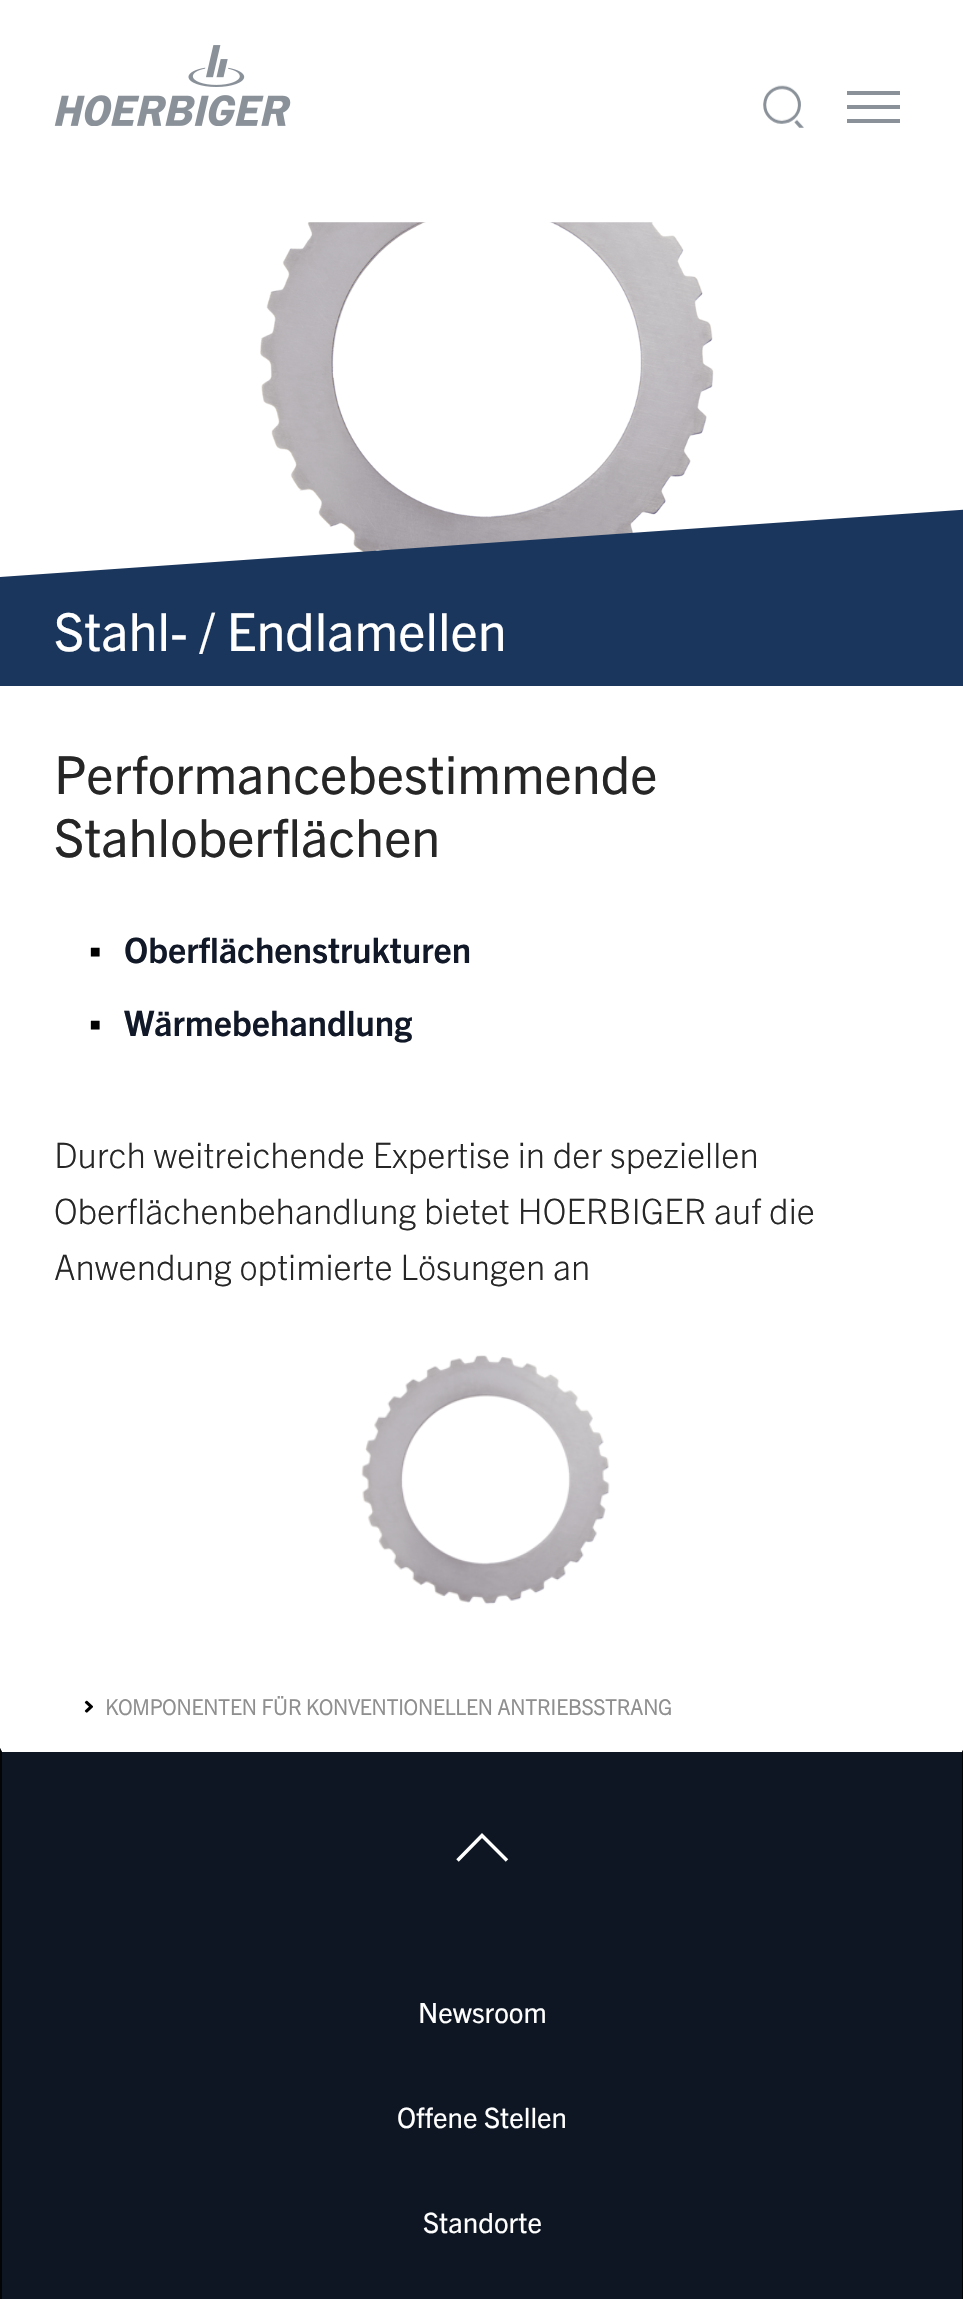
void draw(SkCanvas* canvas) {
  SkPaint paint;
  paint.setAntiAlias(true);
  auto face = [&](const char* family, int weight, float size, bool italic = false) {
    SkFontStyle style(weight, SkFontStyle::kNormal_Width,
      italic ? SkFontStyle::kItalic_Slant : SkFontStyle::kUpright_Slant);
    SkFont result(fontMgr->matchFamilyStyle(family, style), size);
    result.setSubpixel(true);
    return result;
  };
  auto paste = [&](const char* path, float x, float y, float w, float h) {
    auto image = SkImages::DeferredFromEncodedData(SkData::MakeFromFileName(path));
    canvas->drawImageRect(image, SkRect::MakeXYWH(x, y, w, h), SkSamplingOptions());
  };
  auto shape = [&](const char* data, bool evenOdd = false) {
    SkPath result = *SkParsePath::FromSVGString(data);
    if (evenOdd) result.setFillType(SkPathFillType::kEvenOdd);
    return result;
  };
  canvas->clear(0xffffffff);
  paste("img/1.png", 54, 45, 237, 81);
  paste("img/2.png", 763, 85, 41, 43);
  {
    const struct { float x, y, w, h; SkColor color; } items[] = {
      {847, 119, 53, 4, 0xff8a9199},
      {847, 105, 53, 4, 0xff8a9199},
      {847, 91, 53, 4, 0xff8a9199},
    };
    for (auto [x, y, w, h, color] : items) {
      paint.setColor(color);
      canvas->drawRect(SkRect::MakeXYWH(x, y, w, h), paint);
    }
  }
  paste("img/3.png", 260, 222, 454, 330);
  canvas->save();
  canvas->clipRect(SkRect::MakeXYWH(0, 462, 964, 224));
  paint.setColor(0xff1b365d);
  canvas->drawPath(shape("M0 577L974 509V844L0 912Z"), paint);
  canvas->restore();
  paste("img/4.png", 361, 1355, 249, 250);
  paste("img/5.png", 84, 1700, 9, 13);
  paint.setColor(0xff0d1622);
  canvas->drawRect(SkRect::MakeXYWH(0, 1748, 963, 551), paint);
  paint.setColor(0xffffffff);
  canvas->drawPath(shape("M0 1748H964L962 1752H2Z"), paint);
  paint.setColor(0xd9000000);
  canvas->drawPath(shape("M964 1748V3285L962 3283V1752Z"), paint);
  canvas->drawPath(shape("M0 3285V1748L2 1752V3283Z"), paint);
  paint.setStroke(true);
  paint.setStrokeWidth(3.5f);
  paint.setColor(0xffffffff);
  canvas->drawPath(shape("M457.5 1860.5L482 1835.5L507 1860.5"), paint);
  auto f0 = face("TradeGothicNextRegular", 400, 52.5f);
  paint.setStroke(false);
  canvas->drawString("Stahl- / Endlamellen", 54, 651, f0, paint);
  paint.setColor(0xff262626);
  canvas->drawString("Performancebestimmende", 54, 794, f0, paint);
  canvas->drawString("Stahloberflächen", 54, 857, f0, paint);
  auto f1 = face("Liberation Sans", 700, 35);
  paint.setColor(0xff000000);
  canvas->drawString("▪", 89, 963, f1, paint);
  auto f2 = face("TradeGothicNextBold", 700, 35);
  paint.setColor(0xff111827);
  canvas->drawString("Oberflächenstrukturen", 124, 963, f2, paint);
  paint.setColor(0xff000000);
  canvas->drawString("▪", 89, 1036, f1, paint);
  paint.setColor(0xff111827);
  canvas->drawString("Wärmebehandlung", 124, 1036, f2, paint);
  auto f3 = face("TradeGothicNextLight", 300, 35);
  paint.setColor(0xff262626);
  {
    const struct { const char* s; float x, y; } items[] = {
      {"Durch weitreichende Expertise in der speziellen", 54, 1168},
      {"Oberflächenbehandlung bietet HOERBIGER auf die", 54, 1224},
      {"Anwendung optimierte Lösungen an", 54, 1280},
    };
    for (auto [s, x, y] : items) {
      canvas->drawString(s, x, y, f3, paint);
    }
  }
  auto f4 = face("TradeGothicNextLight", 700, 21);
  paint.setColor(0xff8f8f8f);
  canvas->drawString("KOMPONENTEN FÜR KONVENTIONELLEN ANTRIEBSSTRANG", 105, 1715, f4, paint);
  auto f5 = face("TradeGothicNextRegular", 400, 28);
  paint.setColor(0xffffffff);
  {
    const struct { const char* s; float x, y; } items[] = {
      {"Newsroom", 418, 2023},
      {"Offene Stellen", 397, 2128},
      {"Standorte", 423, 2233},
    };
    for (auto [s, x, y] : items) {
      canvas->drawString(s, x, y, f5, paint);
    }
  }
}
